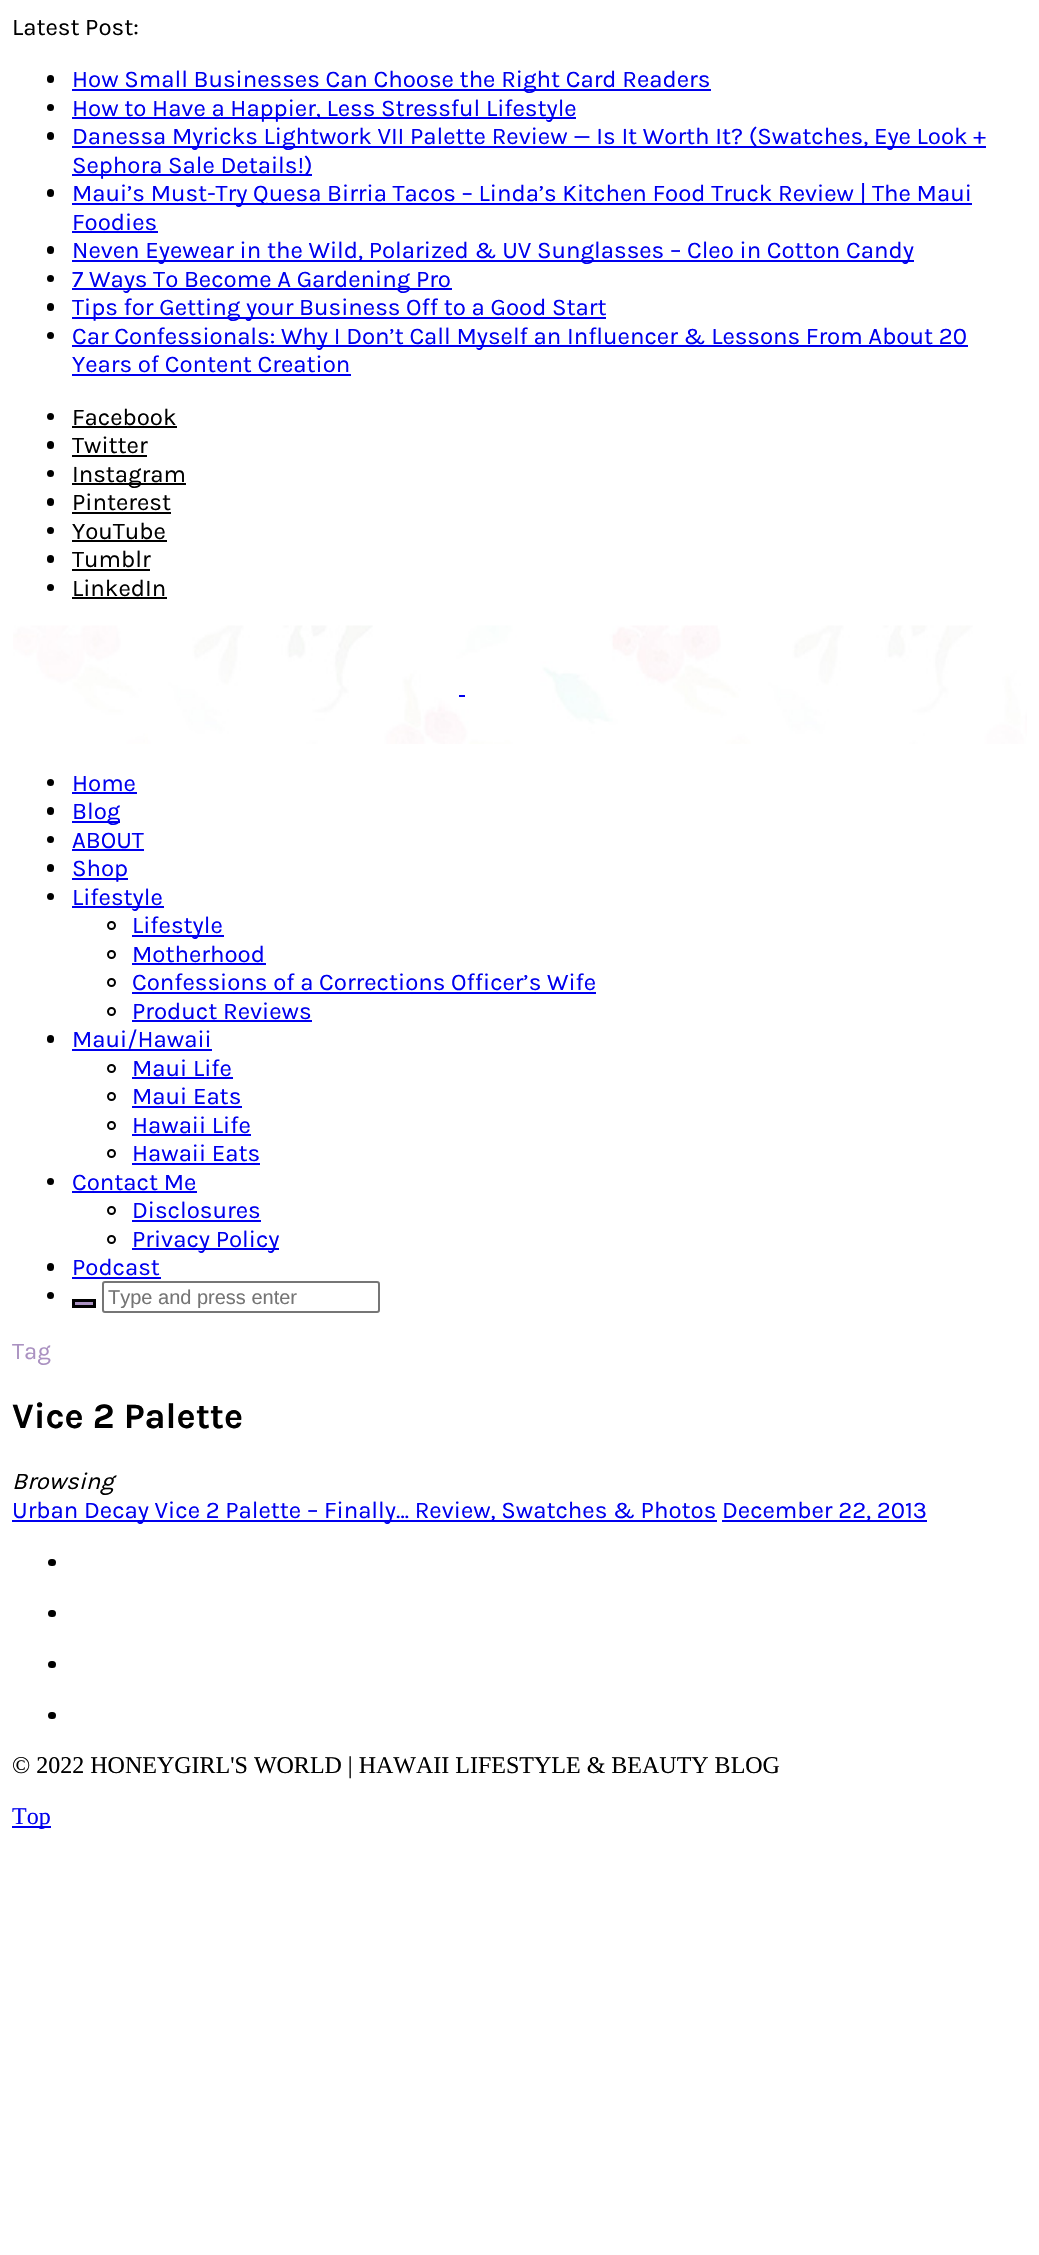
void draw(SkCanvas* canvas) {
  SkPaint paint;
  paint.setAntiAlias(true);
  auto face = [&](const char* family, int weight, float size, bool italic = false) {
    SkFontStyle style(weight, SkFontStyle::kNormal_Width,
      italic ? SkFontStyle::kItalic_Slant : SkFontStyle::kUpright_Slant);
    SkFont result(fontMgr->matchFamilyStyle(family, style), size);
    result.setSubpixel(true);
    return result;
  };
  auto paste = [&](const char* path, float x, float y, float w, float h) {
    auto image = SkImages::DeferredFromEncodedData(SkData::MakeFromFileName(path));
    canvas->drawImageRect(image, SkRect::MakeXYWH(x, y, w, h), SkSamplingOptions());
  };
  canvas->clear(0xffffffff);
  paint.setColor(0xff000000);
  canvas->drawRoundRect(SkRect::MakeXYWH(47, 75, 7, 8), 3.5f, 3.5f, paint);
  paint.setColor(0xff0000ee);
  canvas->drawRect(SkRect::MakeXYWH(72, 89, 639, 2), paint);
  paint.setColor(0xff000000);
  canvas->drawCircle(50.5f, 107.5f, 3.5f, paint);
  paint.setColor(0xff0000ee);
  canvas->drawRect(SkRect::MakeXYWH(72, 117, 504, 2), paint);
  paint.setColor(0xff000000);
  canvas->drawRoundRect(SkRect::MakeXYWH(47, 132, 7, 8), 3.5f, 3.5f, paint);
  paint.setColor(0xff0000ee);
  canvas->drawRect(SkRect::MakeXYWH(72, 146, 914, 2), paint);
  canvas->drawRect(SkRect::MakeXYWH(72, 174, 240, 2), paint);
  paint.setColor(0xff000000);
  canvas->drawRoundRect(SkRect::MakeXYWH(47, 189, 7, 8), 3.5f, 3.5f, paint);
  paint.setColor(0xff0000ee);
  canvas->drawRect(SkRect::MakeXYWH(72, 203, 900, 2), paint);
  canvas->drawRect(SkRect::MakeXYWH(72, 231, 86, 2), paint);
  paint.setColor(0xff000000);
  canvas->drawRoundRect(SkRect::MakeXYWH(47, 246, 7, 8), 3.5f, 3.5f, paint);
  paint.setColor(0xff0000ee);
  canvas->drawRect(SkRect::MakeXYWH(72, 260, 842, 2), paint);
  paint.setColor(0xff000000);
  canvas->drawCircle(50.5f, 278.5f, 3.5f, paint);
  paint.setColor(0xff0000ee);
  canvas->drawRect(SkRect::MakeXYWH(72, 288, 380, 2), paint);
  paint.setColor(0xff000000);
  canvas->drawRoundRect(SkRect::MakeXYWH(47, 303, 7, 8), 3.5f, 3.5f, paint);
  paint.setColor(0xff0000ee);
  canvas->drawRect(SkRect::MakeXYWH(72, 317, 534, 2), paint);
  paint.setColor(0xff000000);
  canvas->drawCircle(50.5f, 335.5f, 3.5f, paint);
  paint.setColor(0xff0000ee);
  canvas->drawRect(SkRect::MakeXYWH(72, 345, 896, 2), paint);
  canvas->drawRect(SkRect::MakeXYWH(72, 374, 279, 2), paint);
  paint.setColor(0xff000000);
  canvas->drawCircle(50.5f, 416.5f, 3.5f, paint);
  canvas->drawRect(SkRect::MakeXYWH(72, 426, 105, 2), paint);
  canvas->drawRoundRect(SkRect::MakeXYWH(47, 441, 7, 8), 3.5f, 3.5f, paint);
  canvas->drawRect(SkRect::MakeXYWH(72, 455, 75, 2), paint);
  canvas->drawCircle(50.5f, 473.5f, 3.5f, paint);
  canvas->drawRect(SkRect::MakeXYWH(72, 483, 114, 2), paint);
  canvas->drawRoundRect(SkRect::MakeXYWH(47, 498, 7, 8), 3.5f, 3.5f, paint);
  canvas->drawRect(SkRect::MakeXYWH(72, 512, 99, 2), paint);
  canvas->drawCircle(50.5f, 530.5f, 3.5f, paint);
  canvas->drawRect(SkRect::MakeXYWH(72, 540, 95, 2), paint);
  canvas->drawRoundRect(SkRect::MakeXYWH(47, 555, 7, 8), 3.5f, 3.5f, paint);
  canvas->drawRect(SkRect::MakeXYWH(72, 569, 78, 2), paint);
  canvas->drawCircle(50.5f, 587.5f, 3.5f, paint);
  canvas->drawRect(SkRect::MakeXYWH(72, 597, 95, 2), paint);
  paste("img/1.png", 13, 625, 1014, 119);
  paint.setColor(0xff0000ee);
  canvas->drawRect(SkRect::MakeXYWH(459, 695, 6, 2), paint);
  paint.setColor(0xff000000);
  canvas->drawCircle(50.5f, 782.5f, 3.5f, paint);
  paint.setColor(0xff0000ee);
  canvas->drawRect(SkRect::MakeXYWH(72, 792, 65, 2), paint);
  paint.setColor(0xff000000);
  canvas->drawRoundRect(SkRect::MakeXYWH(47, 807, 7, 8), 3.5f, 3.5f, paint);
  paint.setColor(0xff0000ee);
  canvas->drawRect(SkRect::MakeXYWH(72, 821, 48, 2), paint);
  paint.setColor(0xff000000);
  canvas->drawCircle(50.5f, 839.5f, 3.5f, paint);
  paint.setColor(0xff0000ee);
  canvas->drawRect(SkRect::MakeXYWH(72, 849, 72, 2), paint);
  paint.setColor(0xff000000);
  canvas->drawRoundRect(SkRect::MakeXYWH(47, 864, 7, 8), 3.5f, 3.5f, paint);
  paint.setColor(0xff0000ee);
  canvas->drawRect(SkRect::MakeXYWH(72, 878, 56, 2), paint);
  paint.setColor(0xff000000);
  canvas->drawCircle(50.5f, 896.5f, 3.5f, paint);
  paint.setColor(0xff0000ee);
  canvas->drawRect(SkRect::MakeXYWH(72, 906, 92, 2), paint);
  paint.setStroke(true);
  paint.setStrokeWidth(2);
  paint.setColor(0xff000000);
  canvas->drawCircle(111.5f, 925.5f, 3.5f, paint);
  paint.setStroke(false);
  paint.setColor(0xff0000ee);
  canvas->drawRect(SkRect::MakeXYWH(132, 935, 92, 2), paint);
  paint.setStroke(true);
  paint.setColor(0xff000000);
  canvas->drawCircle(111.5f, 954.5f, 3.5f, paint);
  paint.setStroke(false);
  paint.setColor(0xff0000ee);
  canvas->drawRect(SkRect::MakeXYWH(132, 963, 134, 2), paint);
  paint.setStroke(true);
  paint.setColor(0xff000000);
  canvas->drawCircle(111.5f, 982.5f, 3.5f, paint);
  paint.setStroke(false);
  paint.setColor(0xff0000ee);
  canvas->drawRect(SkRect::MakeXYWH(132, 992, 464, 2), paint);
  paint.setStroke(true);
  paint.setColor(0xff000000);
  canvas->drawCircle(111.5f, 1011.5f, 3.5f, paint);
  paint.setStroke(false);
  paint.setColor(0xff0000ee);
  canvas->drawRect(SkRect::MakeXYWH(132, 1020, 180, 2), paint);
  paint.setColor(0xff000000);
  canvas->drawRoundRect(SkRect::MakeXYWH(47, 1035, 7, 8), 3.5f, 3.5f, paint);
  paint.setColor(0xff0000ee);
  canvas->drawRect(SkRect::MakeXYWH(72, 1049, 140, 2), paint);
  paint.setStroke(true);
  paint.setColor(0xff000000);
  canvas->drawCircle(111.5f, 1068.5f, 3.5f, paint);
  paint.setStroke(false);
  paint.setColor(0xff0000ee);
  canvas->drawRect(SkRect::MakeXYWH(132, 1077, 101, 2), paint);
  paint.setStroke(true);
  paint.setColor(0xff000000);
  canvas->drawCircle(111.5f, 1096.5f, 3.5f, paint);
  paint.setStroke(false);
  paint.setColor(0xff0000ee);
  canvas->drawRect(SkRect::MakeXYWH(132, 1106, 110, 2), paint);
  paint.setStroke(true);
  paint.setColor(0xff000000);
  canvas->drawCircle(111.5f, 1125.5f, 3.5f, paint);
  paint.setStroke(false);
  paint.setColor(0xff0000ee);
  canvas->drawRect(SkRect::MakeXYWH(132, 1134, 119, 2), paint);
  paint.setStroke(true);
  paint.setColor(0xff000000);
  canvas->drawCircle(111.5f, 1153.5f, 3.5f, paint);
  paint.setStroke(false);
  paint.setColor(0xff0000ee);
  canvas->drawRect(SkRect::MakeXYWH(132, 1163, 128, 2), paint);
  paint.setColor(0xff000000);
  canvas->drawCircle(50.5f, 1181.5f, 3.5f, paint);
  paint.setColor(0xff0000ee);
  canvas->drawRect(SkRect::MakeXYWH(72, 1191, 125, 2), paint);
  paint.setStroke(true);
  paint.setColor(0xff000000);
  canvas->drawCircle(111.5f, 1210.5f, 3.5f, paint);
  paint.setStroke(false);
  paint.setColor(0xff0000ee);
  canvas->drawRect(SkRect::MakeXYWH(132, 1220, 129, 2), paint);
  paint.setStroke(true);
  paint.setColor(0xff000000);
  canvas->drawCircle(111.5f, 1239.5f, 3.5f, paint);
  paint.setStroke(false);
  paint.setColor(0xff0000ee);
  canvas->drawRect(SkRect::MakeXYWH(132, 1248, 147, 2), paint);
  paint.setColor(0xff000000);
  canvas->drawRoundRect(SkRect::MakeXYWH(47, 1263, 7, 8), 3.5f, 3.5f, paint);
  paint.setColor(0xff0000ee);
  canvas->drawRect(SkRect::MakeXYWH(72, 1277, 89, 2), paint);
  paint.setColor(0xff000000);
  canvas->drawCircle(50.5f, 1295.5f, 3.5f, paint);
  paint.setColor(0xffaa91c1);
  canvas->drawRect(SkRect::MakeXYWH(73.5f, 1300.5f, 21, 6), paint);
  paint.setStroke(true);
  paint.setStrokeWidth(3);
  paint.setColor(0xff000000);
  canvas->drawRect(SkRect::MakeXYWH(73.5f, 1300.5f, 21, 6), paint);
  paint.setStrokeWidth(2);
  paint.setColor(0xff767676);
  canvas->drawRoundRect(SkRect::MakeXYWH(103, 1282, 276, 30), 2, 2, paint);
  paint.setStroke(false);
  paint.setColor(0xff0000ee);
  canvas->drawRect(SkRect::MakeXYWH(12, 1520, 705, 2), paint);
  canvas->drawRect(SkRect::MakeXYWH(722, 1520, 205, 2), paint);
  paint.setColor(0xff000000);
  canvas->drawRoundRect(SkRect::MakeXYWH(48, 1559, 8, 7), 3.5f, 3.5f, paint);
  canvas->drawRoundRect(SkRect::MakeXYWH(48, 1610, 8, 7), 3.5f, 3.5f, paint);
  canvas->drawRoundRect(SkRect::MakeXYWH(48, 1661, 8, 7), 3.5f, 3.5f, paint);
  canvas->drawRoundRect(SkRect::MakeXYWH(48, 1712, 8, 7), 3.5f, 3.5f, paint);
  paint.setColor(0xff0000ee);
  canvas->drawRect(SkRect::MakeXYWH(12, 1826, 39, 2), paint);
  auto f0 = face("Karla", 400, 24);
  paint.setColor(0xff000000);
  canvas->drawString("Latest Post:", 12, 35, f0, paint);
  paint.setColor(0xff0000ee);
  {
    const struct { const char* s; float x, y; } items[] = {
      {"How Small Businesses Can Choose the Right Card Readers", 72, 87},
      {"How to Have a Happier, Less Stressful Lifestyle", 72, 116},
      {"Danessa Myricks Lightwork VII Palette Review — Is It Worth It? (Swatches, Eye Look +", 72, 144},
      {"Sephora Sale Details!)", 72, 173},
      {"Maui’s Must-Try Quesa Birria Tacos – Linda’s Kitchen Food Truck Review | The Maui", 72, 201},
      {"Foodies", 72, 230},
      {"Neven Eyewear in the Wild, Polarized & UV Sunglasses – Cleo in Cotton Candy", 72, 258},
      {"7 Ways To Become A Gardening Pro", 72, 287},
      {"Tips for Getting your Business Off to a Good Start", 72, 315},
      {"Car Confessionals: Why I Don’t Call Myself an Influencer & Lessons From About 20", 72, 344},
      {"Years of Content Creation", 72, 372},
    };
    for (auto [s, x, y] : items) {
      canvas->drawString(s, x, y, f0, paint);
    }
  }
  paint.setColor(0xff000000);
  {
    const struct { const char* s; float x, y; } items[] = {
      {"Facebook", 72, 425},
      {"Twitter", 72, 453},
      {"Instagram", 72, 482},
      {"Pinterest", 72, 510},
      {"YouTube", 72, 539},
      {"Tumblr", 72, 567},
      {"LinkedIn", 72, 596},
    };
    for (auto [s, x, y] : items) {
      canvas->drawString(s, x, y, f0, paint);
    }
  }
  paint.setColor(0xff0000ee);
  {
    const struct { const char* s; float x, y; } items[] = {
      {"Home", 72, 791},
      {"Blog", 72, 819},
      {"ABOUT", 72, 848},
      {"Shop", 72, 876},
      {"Lifestyle", 72, 905},
      {"Lifestyle", 132, 933},
      {"Motherhood", 132, 962},
      {"Confessions of a Corrections Officer’s Wife", 132, 990},
      {"Product Reviews", 132, 1019},
      {"Maui/Hawaii", 72, 1047},
      {"Maui Life", 132, 1076},
      {"Maui Eats", 132, 1104},
      {"Hawaii Life", 132, 1133},
      {"Hawaii Eats", 132, 1161},
      {"Contact Me", 72, 1190},
      {"Disclosures", 132, 1218},
      {"Privacy Policy", 132, 1247},
      {"Podcast", 72, 1275},
    };
    for (auto [s, x, y] : items) {
      canvas->drawString(s, x, y, f0, paint);
    }
  }
  canvas->save();
  canvas->clipRect(SkRect::MakeXYWH(108, 1286, 246, 22));
  auto f1 = face("Liberation Sans", 400, 20);
  paint.setColor(0xff757575);
  canvas->drawString("Type and press enter", 108, 1304, f1, paint);
  canvas->restore();
  paint.setColor(0xffaa91c1);
  canvas->drawString("Tag", 12, 1359, f0, paint);
  auto f2 = face("Karla", 700, 36);
  paint.setColor(0xff000000);
  canvas->drawString("Vice 2 Palette", 12, 1428, f2, paint);
  auto f3 = face("Karla", 400, 24, true);
  canvas->drawString("Browsing", 12, 1489, f3, paint);
  paint.setColor(0xff0000ee);
  canvas->drawString("Urban Decay Vice 2 Palette – Finally… Review, Swatches & Photos", 12, 1518, f0, paint);
  canvas->drawString("December 22, 2013", 722, 1518, f0, paint);
  auto f4 = face("Liberation Serif", 400, 24);
  paint.setColor(0xff000000);
  canvas->drawString("© 2022 HONEYGIRL'S WORLD | HAWAII LIFESTYLE & BEAUTY BLOG", 12, 1773, f4, paint);
  paint.setColor(0xff0000ee);
  canvas->drawString("Top", 12, 1824, f4, paint);
}
